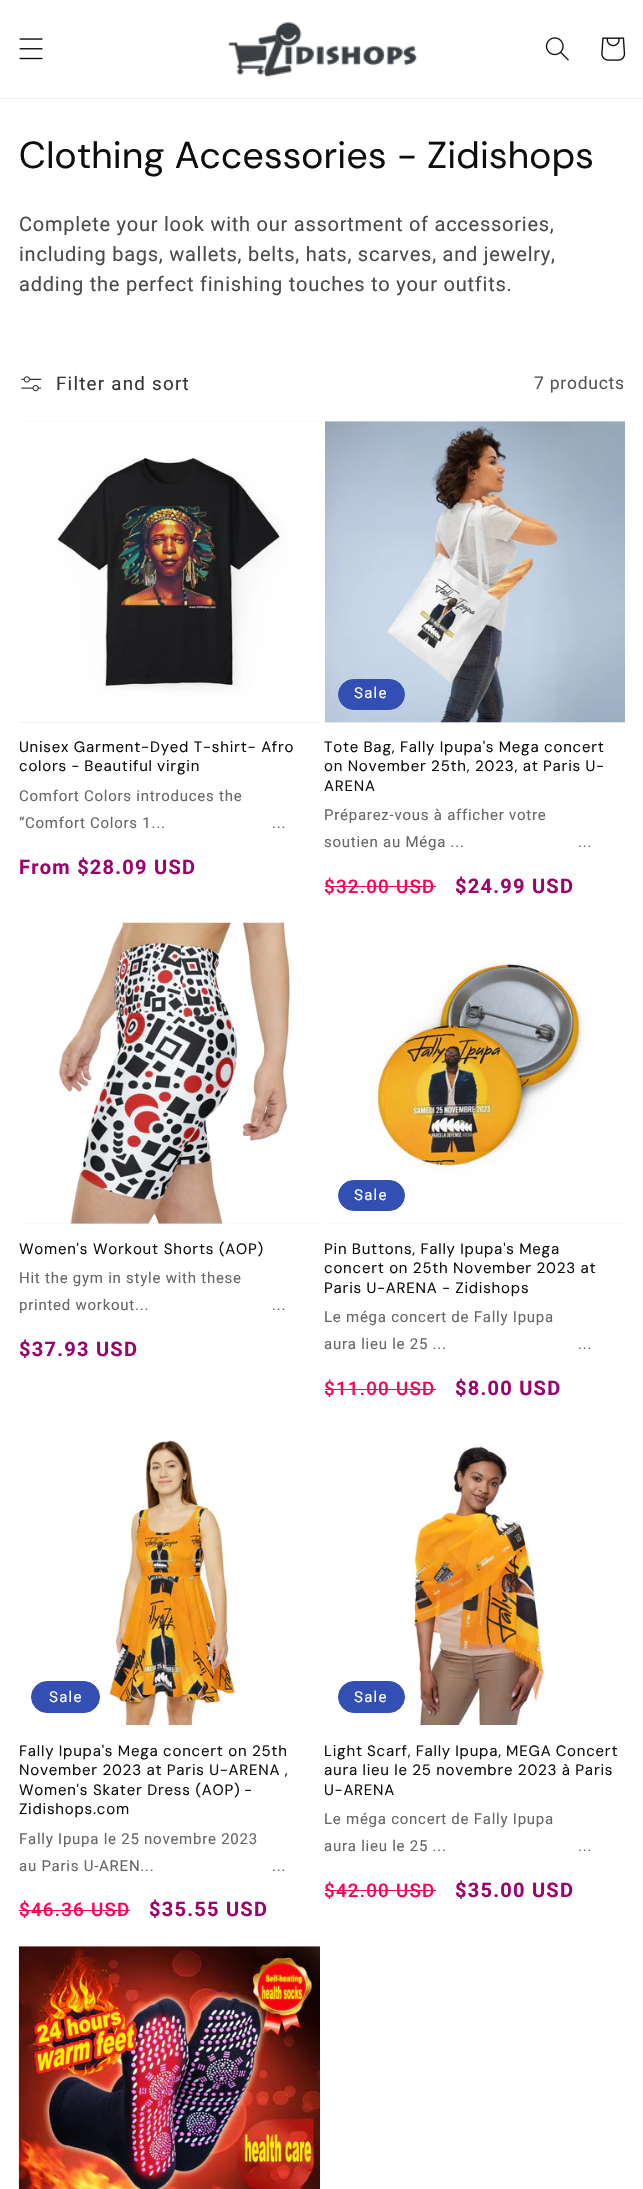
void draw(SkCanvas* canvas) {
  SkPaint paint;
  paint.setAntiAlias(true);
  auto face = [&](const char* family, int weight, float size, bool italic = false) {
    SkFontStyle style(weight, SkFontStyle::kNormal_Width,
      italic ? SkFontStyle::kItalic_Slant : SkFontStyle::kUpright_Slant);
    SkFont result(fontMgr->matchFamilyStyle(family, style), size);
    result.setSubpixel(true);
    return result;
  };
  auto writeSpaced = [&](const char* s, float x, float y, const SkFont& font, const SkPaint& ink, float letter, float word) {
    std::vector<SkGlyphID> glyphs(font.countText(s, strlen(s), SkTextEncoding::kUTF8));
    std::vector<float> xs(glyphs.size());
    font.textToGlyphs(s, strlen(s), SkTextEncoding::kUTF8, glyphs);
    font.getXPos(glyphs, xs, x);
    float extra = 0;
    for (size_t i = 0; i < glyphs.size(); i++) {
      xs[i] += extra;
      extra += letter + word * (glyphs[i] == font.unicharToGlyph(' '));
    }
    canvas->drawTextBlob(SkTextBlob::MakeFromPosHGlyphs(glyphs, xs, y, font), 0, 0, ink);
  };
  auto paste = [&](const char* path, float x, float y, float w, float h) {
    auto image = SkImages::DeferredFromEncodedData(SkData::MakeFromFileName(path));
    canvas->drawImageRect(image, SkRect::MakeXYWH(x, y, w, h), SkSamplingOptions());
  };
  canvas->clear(0xffffffff);
  paint.setColor(0xffececec);
  canvas->drawRect(SkRect::MakeXYWH(0, 98, 643, 1), paint);
  paste("img/1.png", 19, 38, 24, 22);
  paste("img/2.png", 228, 22, 189, 55);
  paste("img/3.png", 545, 37, 24, 24);
  paste("img/4.png", 601, 37, 25, 24);
  paste("img/5.png", 21, 376, 21, 16);
  paint.setColor(0xfff3f3f3);
  canvas->drawRect(SkRect::MakeXYWH(19, 421, 301, 302), paint);
  paste("img/6.png", 19, 421, 301, 301);
  canvas->drawRect(SkRect::MakeXYWH(325, 421, 300, 302), paint);
  paste("img/7.png", 325, 421, 300, 302);
  paint.setColor(0xff334fb4);
  canvas->drawRoundRect(SkRect::MakeXYWH(338.5f, 679.5f, 66, 30), 15, 15, paint);
  paint.setStroke(true);
  paint.setStrokeWidth(1);
  canvas->drawRoundRect(SkRect::MakeXYWH(338.5f, 679.5f, 66, 30), 15, 15, paint);
  paint.setStroke(false);
  paint.setColor(0xffff0054);
  canvas->drawRect(SkRect::MakeXYWH(325, 886, 111, 1), paint);
  paint.setColor(0xfff3f3f3);
  canvas->drawRect(SkRect::MakeXYWH(19, 1223, 301, 1), paint);
  paste("img/8.png", 19, 922, 301, 302);
  canvas->drawRect(SkRect::MakeXYWH(325, 1223, 300, 1), paint);
  paste("img/9.png", 325, 923, 300, 301);
  paint.setColor(0xff334fb4);
  canvas->drawRoundRect(SkRect::MakeXYWH(338.5f, 1180.5f, 66, 30), 15, 15, paint);
  paint.setStroke(true);
  canvas->drawRoundRect(SkRect::MakeXYWH(338.5f, 1180.5f, 66, 30), 15, 15, paint);
  paint.setStroke(false);
  paint.setColor(0xffff0054);
  canvas->drawRect(SkRect::MakeXYWH(325, 1389, 111, 1), paint);
  paste("img/10.png", 19, 1425, 301, 300);
  paint.setColor(0xff334fb4);
  canvas->drawRoundRect(SkRect::MakeXYWH(31.5f, 1681.5f, 68, 31), 15.5f, 15.5f, paint);
  paint.setStroke(true);
  canvas->drawRoundRect(SkRect::MakeXYWH(31.5f, 1681.5f, 68, 31), 15.5f, 15.5f, paint);
  paint.setStroke(false);
  paint.setColor(0xffff0054);
  canvas->drawRect(SkRect::MakeXYWH(19, 1910, 111, 1), paint);
  paste("img/11.png", 325, 1425, 300, 300);
  paint.setColor(0xff334fb4);
  canvas->drawRoundRect(SkRect::MakeXYWH(338.5f, 1681.5f, 66, 31), 15.5f, 15.5f, paint);
  paint.setStroke(true);
  canvas->drawRoundRect(SkRect::MakeXYWH(338.5f, 1681.5f, 66, 31), 15.5f, 15.5f, paint);
  paint.setStroke(false);
  paint.setColor(0xffff0054);
  canvas->drawRect(SkRect::MakeXYWH(325, 1890, 111, 1), paint);
  paint.setColor(0xfff3f3f3);
  canvas->drawRect(SkRect::MakeXYWH(19, 1946, 301, 1), paint);
  paste("img/12.png", 18, 1946, 302, 243);
  auto f0 = face("DM Sans", 400, 37.5f);
  paint.setColor(0xff0e0e0e);
  writeSpaced("Clothing Accessories - Zidishops", 19, 168, f0, paint, 0.75f, 0);
  auto f1 = face("Roboto", 400, 20);
  paint.setColor(0xff4a4a4a);
  {
    const struct { const char* s; float x, y; } items[] = {
      {"Complete your look with our assortment of accessories,", 19, 231},
      {"including bags, wallets, belts, hats, scarves, and jewelry,", 19, 261},
      {"adding the perfect finishing touches to your outfits.", 19, 291},
    };
    for (auto [s, x, y] : items) {
      writeSpaced(s, x, y, f1, paint, 0.75f, 0);
    }
  }
  auto f2 = face("Roboto", 400, 18.75f);
  paint.setColor(0xff363636);
  writeSpaced("Filter and sort", 56, 390, f2, paint, 1.25f, 0);
  auto f3 = face("Roboto", 400, 17.5f);
  paint.setColor(0xff565656);
  writeSpaced("7 products", 534, 389, f3, paint, 0.75f, 0);
  auto f4 = face("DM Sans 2", 400, 15);
  paint.setColor(0xff0e0e0e);
  writeSpaced("Unisex Garment-Dyed T-shirt- Afro", 19, 752, f4, paint, 0.75f, 0);
  writeSpaced("colors - Beautiful virgin", 19, 771, f4, paint, 0.75f, -0.5f);
  auto f5 = face("Roboto", 400, 15);
  paint.setColor(0xff666666);
  {
    const struct { const char* s; float x, y; } items[] = {
      {"Comfort Colors introduces the", 19, 801},
      {"“Comfort Colors 1...", 19, 828},
      {"...", 272, 828},
    };
    for (auto [s, x, y] : items) {
      writeSpaced(s, x, y, f5, paint, 0.75f, 0);
    }
  }
  auto f6 = face("Roboto", 700, 20);
  paint.setColor(0xff9b046f);
  writeSpaced("From $28.09 USD", 19, 874, f6, paint, 1.25f, 0);
  paint.setColor(0xffffffff);
  writeSpaced("Sale", 354, 698, f5, paint, 1.25f, 0);
  paint.setColor(0xff0e0e0e);
  writeSpaced("Tote Bag, Fally Ipupa's Mega concert", 324, 752, f4, paint, 0.75f, -0.25f);
  writeSpaced("on November 25th, 2023, at Paris U-", 324, 771, f4, paint, 0.75f, -0.25f);
  writeSpaced("ARENA", 324, 791, f4, paint, 0.75f, 0);
  paint.setColor(0xff666666);
  {
    const struct { const char* s; float x, y; } items[] = {
      {"Préparez-vous à afficher votre", 324, 820},
      {"soutien au Méga ...", 324, 847},
      {"...", 578, 847},
    };
    for (auto [s, x, y] : items) {
      writeSpaced(s, x, y, f5, paint, 0.75f, 0);
    }
  }
  auto f7 = face("Roboto", 500, 18.75f);
  paint.setColor(0xffff0054);
  writeSpaced("$32.00 USD", 324, 893, f7, paint, 1.25f, 0);
  paint.setColor(0xff9b046f);
  writeSpaced("$24.99 USD", 455, 893, f6, paint, 1.25f, 0);
  paint.setColor(0xff0e0e0e);
  writeSpaced("Women's Workout Shorts (AOP)", 19, 1254, f4, paint, 0.75f, 0);
  paint.setColor(0xff666666);
  {
    const struct { const char* s; float x, y; } items[] = {
      {"Hit the gym in style with these", 19, 1283},
      {"printed workout...", 19, 1310},
      {"...", 272, 1310},
    };
    for (auto [s, x, y] : items) {
      writeSpaced(s, x, y, f5, paint, 0.75f, 0);
    }
  }
  paint.setColor(0xff9b046f);
  writeSpaced("$37.93 USD", 19, 1356, f6, paint, 1.25f, 0);
  paint.setColor(0xffffffff);
  writeSpaced("Sale", 354, 1200, f5, paint, 1.25f, 0);
  paint.setColor(0xff0e0e0e);
  {
    const struct { const char* s; float x, y; } items[] = {
      {"Pin Buttons, Fally Ipupa's Mega", 324, 1254},
      {"concert on 25th November 2023 at", 324, 1273},
      {"Paris U-ARENA - Zidishops", 324, 1293},
    };
    for (auto [s, x, y] : items) {
      writeSpaced(s, x, y, f4, paint, 0.75f, -0.25f);
    }
  }
  paint.setColor(0xff666666);
  {
    const struct { const char* s; float x, y; } items[] = {
      {"Le méga concert de Fally Ipupa", 324, 1322},
      {"aura lieu le 25 ...", 324, 1349},
      {"...", 578, 1349},
    };
    for (auto [s, x, y] : items) {
      writeSpaced(s, x, y, f5, paint, 0.75f, 0);
    }
  }
  paint.setColor(0xffff0054);
  writeSpaced("$11.00 USD", 324, 1395, f7, paint, 1.25f, 0);
  paint.setColor(0xff9b046f);
  writeSpaced("$8.00 USD", 455, 1395, f6, paint, 1.25f, 0);
  paint.setColor(0xffffffff);
  writeSpaced("Sale", 49, 1702, f5, paint, 1.25f, 0);
  paint.setColor(0xff0e0e0e);
  writeSpaced("Fally Ipupa's Mega concert on 25th", 19, 1756, f4, paint, 0.75f, -0.25f);
  writeSpaced("November 2023 at Paris U-ARENA ,", 19, 1775, f4, paint, 0.75f, -0.25f);
  {
    const struct { const char* s; float x, y; } items[] = {
      {"Women's Skater Dress (AOP)", 19, 1795},
      {"-", 244, 1795},
      {"Zidishops.com", 19, 1814},
    };
    for (auto [s, x, y] : items) {
      writeSpaced(s, x, y, f4, paint, 0.75f, 0);
    }
  }
  paint.setColor(0xff666666);
  {
    const struct { const char* s; float x, y; } items[] = {
      {"Fally Ipupa le 25 novembre 2023", 19, 1844},
      {"au Paris U-AREN...", 19, 1871},
      {"...", 272, 1871},
    };
    for (auto [s, x, y] : items) {
      writeSpaced(s, x, y, f5, paint, 0.75f, 0);
    }
  }
  paint.setColor(0xffff0054);
  writeSpaced("$46.36 USD", 19, 1916, f7, paint, 1.25f, 0);
  paint.setColor(0xff9b046f);
  writeSpaced("$35.55 USD", 149, 1916, f6, paint, 1.25f, 0);
  paint.setColor(0xffffffff);
  writeSpaced("Sale", 354, 1702, f5, paint, 1.25f, 0);
  paint.setColor(0xff0e0e0e);
  writeSpaced("Light Scarf, Fally Ipupa, MEGA Concert", 324, 1756, f4, paint, 0.75f, -0.5f);
  writeSpaced("aura lieu le 25 novembre 2023 à Paris", 324, 1775, f4, paint, 0.75f, -0.25f);
  writeSpaced("U-ARENA", 324, 1795, f4, paint, 0.75f, 0);
  paint.setColor(0xff666666);
  {
    const struct { const char* s; float x, y; } items[] = {
      {"Le méga concert de Fally Ipupa", 324, 1824},
      {"aura lieu le 25 ...", 324, 1851},
      {"...", 578, 1851},
    };
    for (auto [s, x, y] : items) {
      writeSpaced(s, x, y, f5, paint, 0.75f, 0);
    }
  }
  paint.setColor(0xffff0054);
  writeSpaced("$42.00 USD", 324, 1897, f7, paint, 1.25f, 0);
  paint.setColor(0xff9b046f);
  writeSpaced("$35.00 USD", 455, 1897, f6, paint, 1.25f, 0);
}
